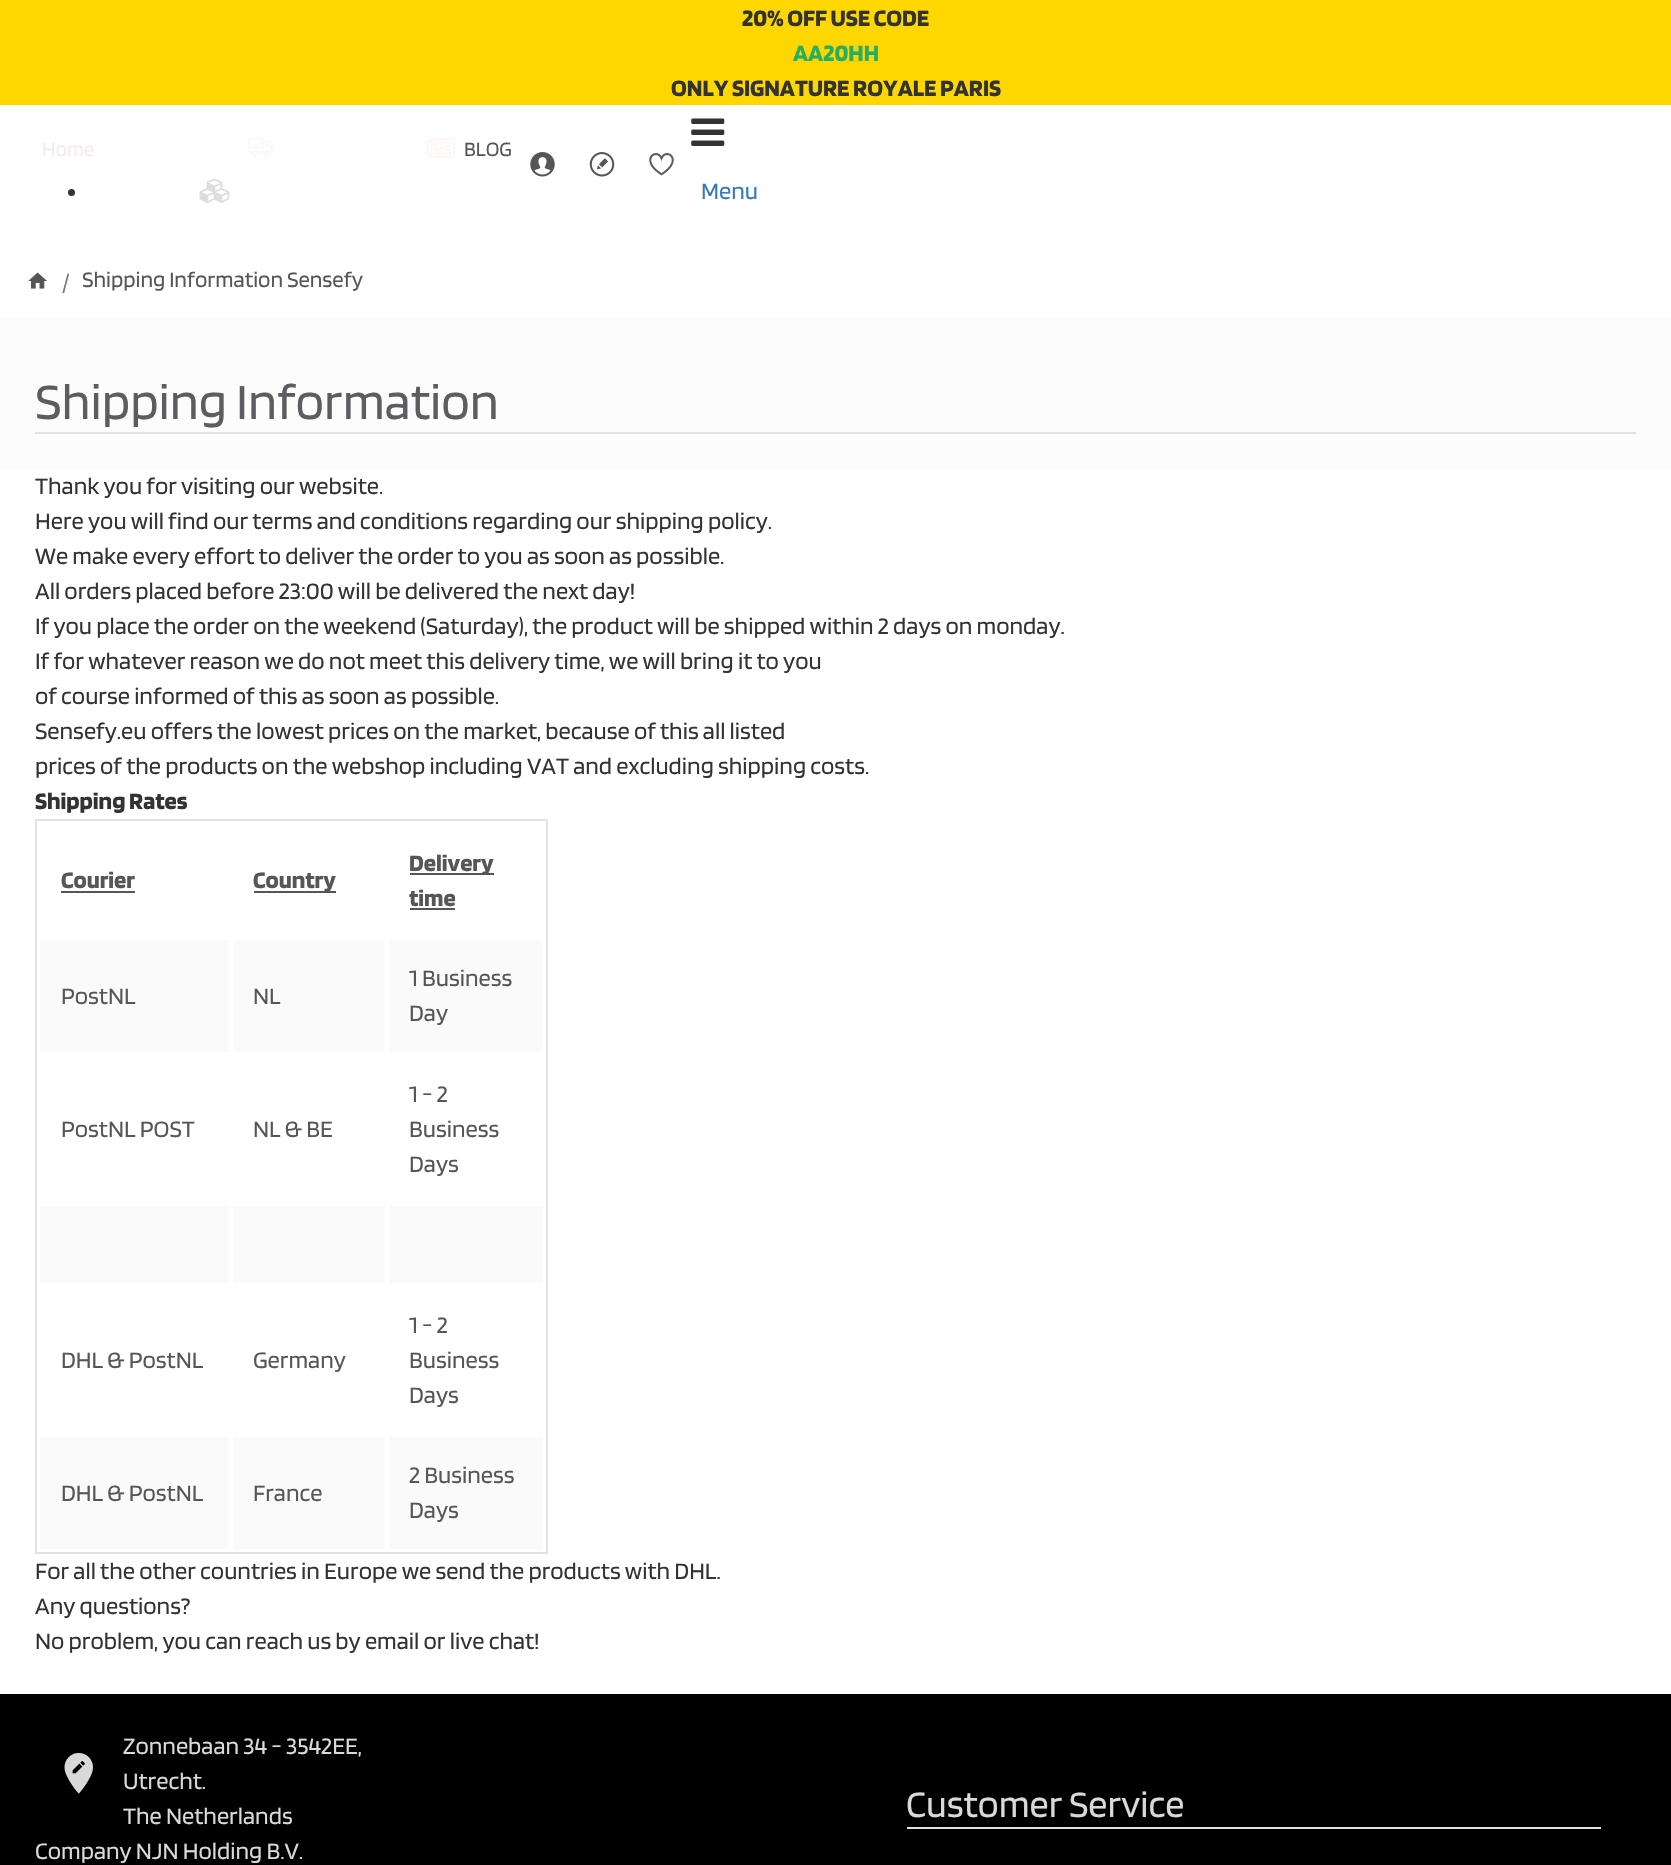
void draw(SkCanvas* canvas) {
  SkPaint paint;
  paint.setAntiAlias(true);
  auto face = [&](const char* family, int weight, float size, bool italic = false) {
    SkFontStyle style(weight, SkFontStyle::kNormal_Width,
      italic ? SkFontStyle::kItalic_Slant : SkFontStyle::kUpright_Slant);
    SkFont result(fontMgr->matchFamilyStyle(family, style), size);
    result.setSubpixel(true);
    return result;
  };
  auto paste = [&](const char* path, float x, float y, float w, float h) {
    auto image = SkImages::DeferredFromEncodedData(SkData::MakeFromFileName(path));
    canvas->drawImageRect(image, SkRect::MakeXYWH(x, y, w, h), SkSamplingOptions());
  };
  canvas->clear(0xfffcfcfc);
  paint.setColor(0xffffd700);
  canvas->drawRect(SkRect::MakeXYWH(0, 0, 1671, 105), paint);
  paint.setColor(0xffffffff);
  canvas->drawRect(SkRect::MakeXYWH(0, 105, 1671, 212), paint);
  paste("img/1.png", 248, 138, 25, 18);
  paste("img/2.png", 427, 138, 28, 20);
  paint.setColor(0xff333333);
  canvas->drawCircle(71.5f, 192.5f, 3.5f, paint);
  paste("img/3.png", 199, 178, 31, 25);
  paste("img/4.png", 530, 152, 25, 25);
  paste("img/5.png", 589, 152, 26, 25);
  paste("img/6.png", 649, 153, 25, 23);
  paste("img/7.png", 691, 118, 34, 28);
  paste("img/8.png", 28, 272, 19, 17);
  paint.setColor(0xffe2e2e2);
  canvas->drawRect(SkRect::MakeXYWH(35, 432, 1601, 2), paint);
  paint.setColor(0xffffffff);
  canvas->drawRect(SkRect::MakeXYWH(0, 469, 1671, 1225), paint);
  paint.setStroke(true);
  paint.setStrokeWidth(2);
  paint.setColor(0xffe2e2e2);
  canvas->drawRect(SkRect::MakeXYWH(36, 820, 511, 733), paint);
  paint.setStroke(false);
  {
    const struct { float x, y, w, h; SkColor color; } items[] = {
      {61, 891, 74, 2, 0xff585654},
      {254, 891, 82, 2, 0xff585654},
      {410, 873, 84, 2, 0xff585654},
      {410, 908, 45, 2, 0xff585654},
      {40, 940, 189, 112, 0xfffafafa},
      {233, 940, 152, 112, 0xfffafafa},
      {389, 940, 154, 112, 0xfffafafa},
      {40, 1206, 189, 77, 0xfffafafa},
      {233, 1206, 152, 77, 0xfffafafa},
      {389, 1206, 154, 77, 0xfffafafa},
      {40, 1437, 189, 112, 0xfffafafa},
      {233, 1437, 152, 112, 0xfffafafa},
      {389, 1437, 154, 112, 0xfffafafa},
      {0, 1694, 1671, 171, 0xff000000},
    };
    for (auto [x, y, w, h, color] : items) {
      paint.setColor(color);
      canvas->drawRect(SkRect::MakeXYWH(x, y, w, h), paint);
    }
  }
  paste("img/9.png", 64, 1752, 29, 42);
  paint.setColor(0xffe2e2e2);
  canvas->drawRect(SkRect::MakeXYWH(907, 1827, 694, 2), paint);
  auto f0 = face("Blinker", 700, 24.5f);
  paint.setColor(0xff333333);
  canvas->drawString("20% OFF USE CODE", 742, 26, f0, paint);
  paint.setColor(0xff27ae60);
  canvas->drawString("AA20HH", 793, 61, f0, paint);
  paint.setColor(0xff333333);
  canvas->drawString("ONLY SIGNATURE ROYALE PARIS", 671, 96, f0, paint);
  auto f1 = face("Blinker", 400, 21);
  paint.setColor(0xfff5ebeb);
  canvas->drawString("Home", 42, 156, f1, paint);
  paint.setColor(0xff585654);
  canvas->drawString("BLOG", 464, 156, f1, paint);
  auto f2 = face("Blinker", 400, 24.5f);
  paint.setColor(0xff337ab7);
  canvas->drawString("Menu", 701, 199, f2, paint);
  paint.setColor(0xff7b7978);
  canvas->drawString("/", 62, 291, f2, paint);
  auto f3 = face("Blinker", 400, 22.75f);
  paint.setColor(0xff585654);
  canvas->drawString("Shipping Information Sensefy", 82, 287, f3, paint);
  auto f4 = face("Blinker", 400, 52.5f);
  paint.setColor(0xff5d5c61);
  canvas->drawString("Shipping Information", 35, 419, f4, paint);
  paint.setColor(0xff333333);
  {
    const struct { const char* s; float x, y; } items[] = {
      {"Thank you for visiting our website.", 35, 494},
      {"Here you will find our terms and conditions regarding our shipping policy.", 35, 529},
      {"We make every effort to deliver the order to you as soon as possible.", 35, 564},
      {"All orders placed before 23:00 will be delivered the next day!", 35, 599},
      {"If you place the order on the weekend (Saturday), the product will be shipped within 2 days on monday.", 35, 634},
      {"If for whatever reason we do not meet this delivery time, we will bring it to you", 35, 669},
      {"of course informed of this as soon as possible.", 35, 704},
      {"Sensefy.eu offers the lowest prices on the market, because of this all listed", 35, 739},
      {"prices of the products on the webshop including VAT and excluding shipping costs.", 35, 774},
    };
    for (auto [s, x, y] : items) {
      canvas->drawString(s, x, y, f2, paint);
    }
  }
  canvas->drawString("Shipping Rates", 35, 809, f0, paint);
  paint.setColor(0xff585654);
  {
    const struct { const char* s; float x, y; } items[] = {
      {"Courier", 61, 888},
      {"Country", 253, 888},
      {"Delivery", 409, 871},
      {"time", 409, 906},
    };
    for (auto [s, x, y] : items) {
      canvas->drawString(s, x, y, f0, paint);
    }
  }
  {
    const struct { const char* s; float x, y; } items[] = {
      {"PostNL", 61, 1004},
      {"NL", 253, 1004},
      {"1 Business", 409, 986},
      {"Day", 409, 1021},
      {"PostNL POST", 61, 1137},
      {"NL & BE", 253, 1137},
      {"1 - 2", 409, 1102},
      {"Business", 409, 1137},
      {"Days", 409, 1172},
      {"DHL & PostNL", 61, 1368},
      {"Germany", 253, 1368},
      {"1 - 2", 409, 1333},
      {"Business", 409, 1368},
      {"Days", 409, 1403},
      {"DHL & PostNL", 61, 1501},
      {"France", 253, 1501},
      {"2 Business", 409, 1483},
      {"Days", 409, 1518},
    };
    for (auto [s, x, y] : items) {
      canvas->drawString(s, x, y, f2, paint);
    }
  }
  paint.setColor(0xff333333);
  {
    const struct { const char* s; float x, y; } items[] = {
      {"For all the other countries in Europe we send the products with DHL.", 35, 1579},
      {"Any questions?", 35, 1614},
      {"No problem, you can reach us by email or live chat!", 35, 1649},
    };
    for (auto [s, x, y] : items) {
      canvas->drawString(s, x, y, f2, paint);
    }
  }
  paint.setColor(0xffd9d9d9);
  {
    const struct { const char* s; float x, y; } items[] = {
      {"Zonnebaan 34 - 3542EE,", 123, 1754},
      {"Utrecht.", 123, 1789},
      {"The Netherlands", 123, 1824},
      {"Company NJN Holding B.V.", 35, 1859},
    };
    for (auto [s, x, y] : items) {
      canvas->drawString(s, x, y, f2, paint);
    }
  }
  auto f5 = face("Blinker", 400, 38.5f);
  canvas->drawString("Customer Service", 906, 1817, f5, paint);
}
